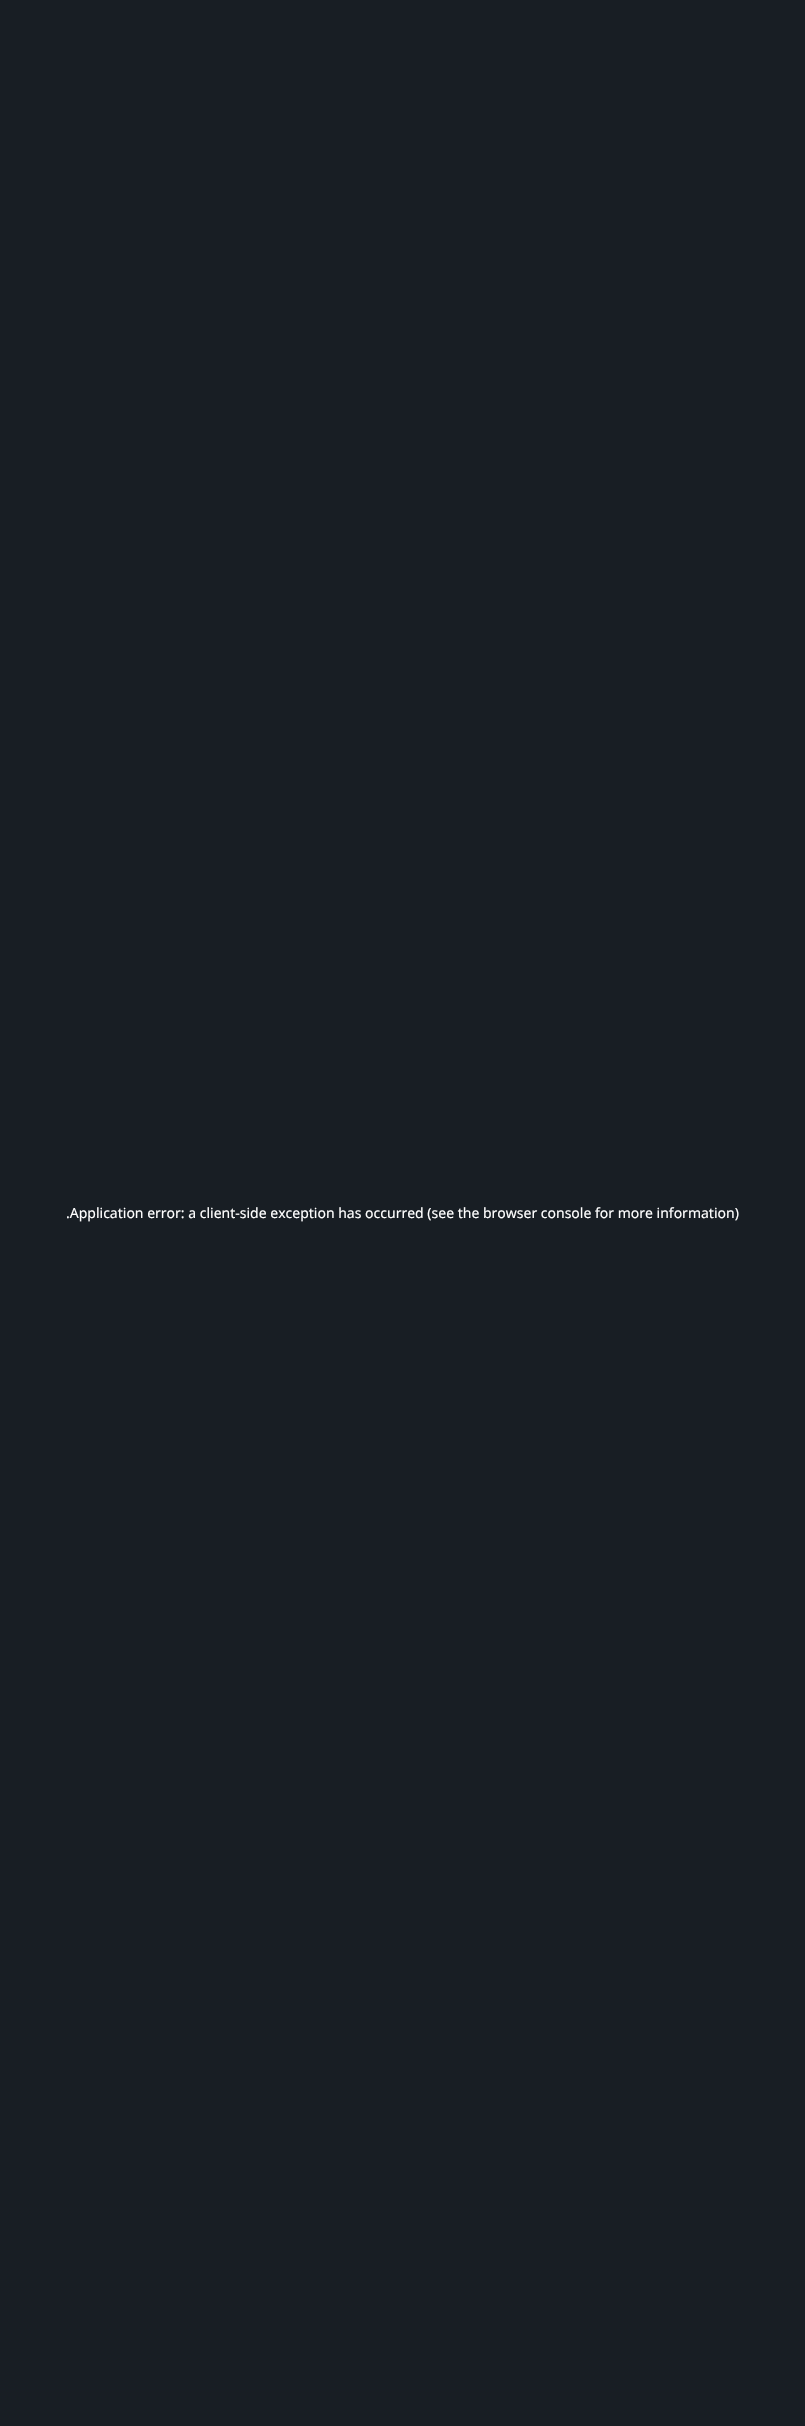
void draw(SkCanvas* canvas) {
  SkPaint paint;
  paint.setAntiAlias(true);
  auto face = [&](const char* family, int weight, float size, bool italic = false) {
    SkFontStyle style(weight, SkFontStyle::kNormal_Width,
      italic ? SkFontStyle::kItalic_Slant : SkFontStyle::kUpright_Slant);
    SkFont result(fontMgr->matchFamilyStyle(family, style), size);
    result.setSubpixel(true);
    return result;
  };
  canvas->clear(0xff181e24);
  auto f0 = face("Noto Sans", 400, 14);
  paint.setColor(0xffffffff);
  canvas->drawString(".Application error: a client-side exception has occurred (see the browser console for more information)", 66, 1218, f0, paint);
}
